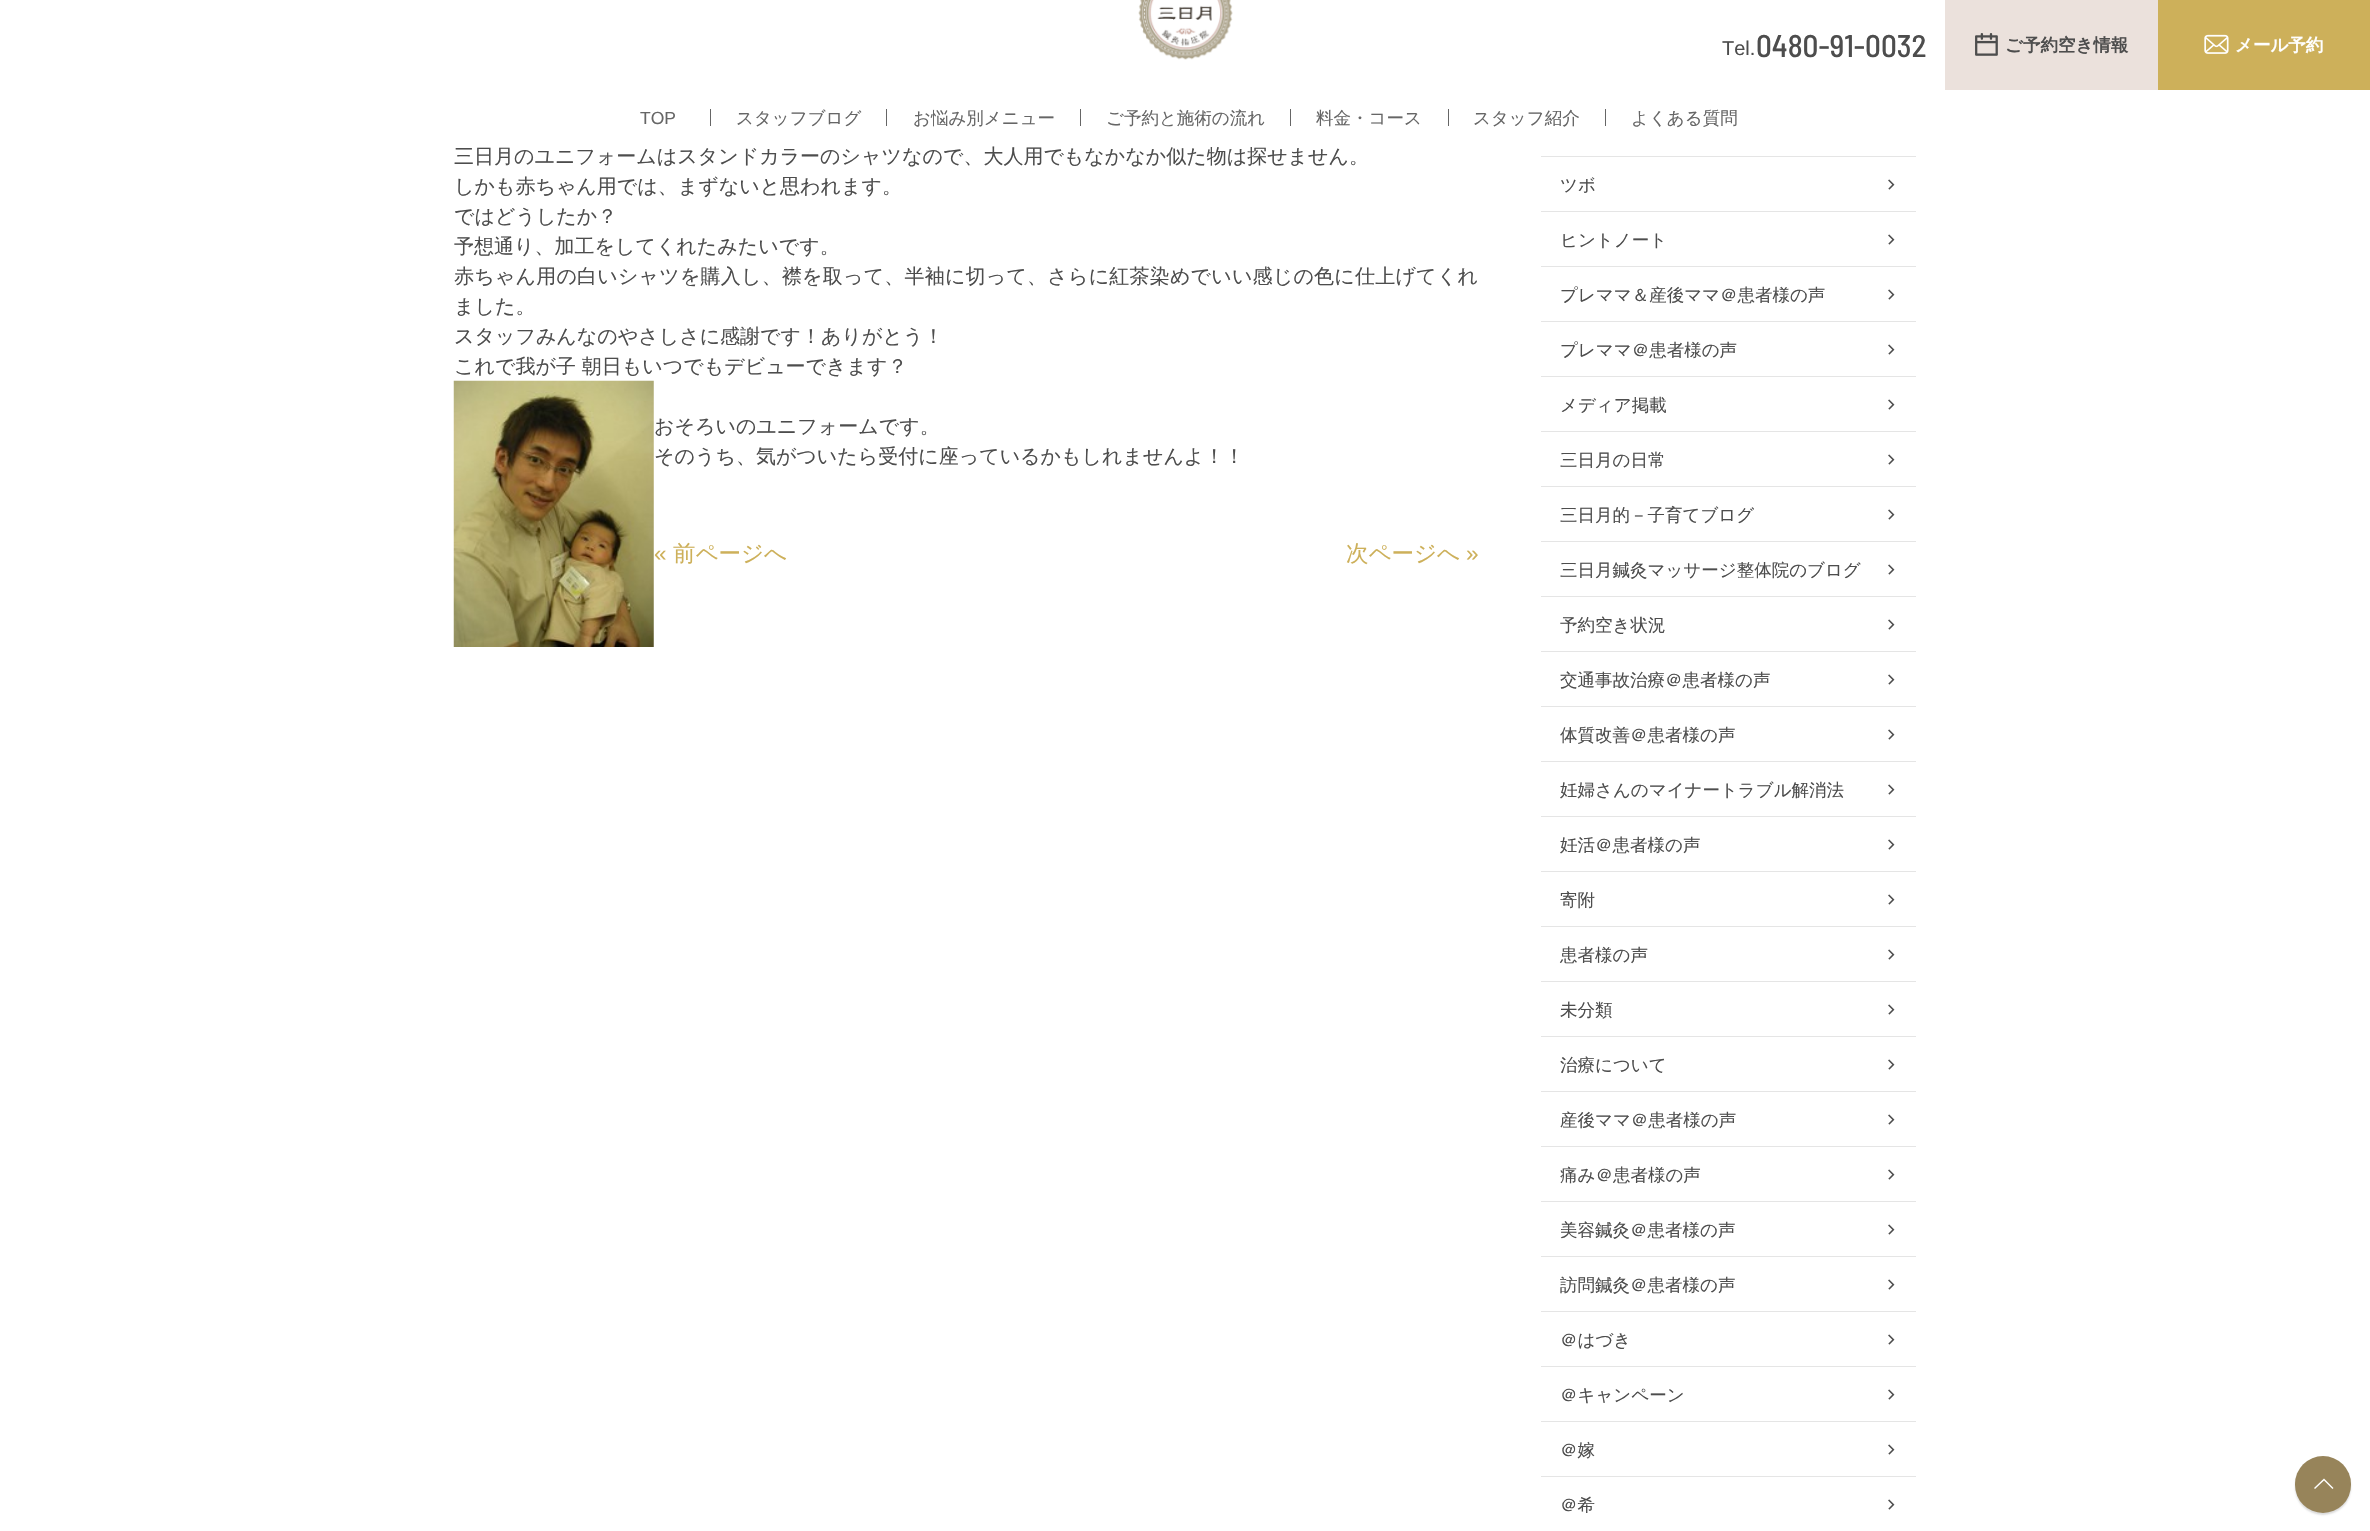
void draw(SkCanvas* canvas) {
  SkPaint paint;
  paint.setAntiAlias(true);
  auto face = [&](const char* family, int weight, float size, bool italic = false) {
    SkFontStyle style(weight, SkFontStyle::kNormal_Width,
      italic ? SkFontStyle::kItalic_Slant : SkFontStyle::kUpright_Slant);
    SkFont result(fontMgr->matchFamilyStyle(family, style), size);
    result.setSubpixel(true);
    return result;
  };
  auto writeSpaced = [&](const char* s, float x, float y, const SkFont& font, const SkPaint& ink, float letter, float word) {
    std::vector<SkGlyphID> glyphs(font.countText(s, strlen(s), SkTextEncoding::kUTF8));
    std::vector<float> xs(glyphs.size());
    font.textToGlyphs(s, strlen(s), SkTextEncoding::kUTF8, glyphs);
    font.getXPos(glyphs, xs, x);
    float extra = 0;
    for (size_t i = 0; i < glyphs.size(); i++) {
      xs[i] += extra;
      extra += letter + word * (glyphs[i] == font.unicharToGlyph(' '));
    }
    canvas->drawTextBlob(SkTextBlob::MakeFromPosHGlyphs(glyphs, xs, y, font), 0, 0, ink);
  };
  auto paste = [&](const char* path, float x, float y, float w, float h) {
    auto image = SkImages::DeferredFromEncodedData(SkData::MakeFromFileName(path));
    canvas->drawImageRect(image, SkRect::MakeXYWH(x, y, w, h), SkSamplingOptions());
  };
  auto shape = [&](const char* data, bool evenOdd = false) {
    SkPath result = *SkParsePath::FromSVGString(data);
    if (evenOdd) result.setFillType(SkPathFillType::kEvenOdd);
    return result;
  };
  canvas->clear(0xffffffff);
  paint.setColor(0xffebe1dc);
  canvas->drawRect(SkRect::MakeXYWH(1945, 0, 213, 90), paint);
  paste("img/1.png", 1975, 33, 23, 23);
  paint.setColor(0xffcdb05a);
  canvas->drawRect(SkRect::MakeXYWH(2158, 0, 212, 90), paint);
  paste("img/2.png", 2204, 34, 25, 20);
  paste("img/3.png", 453, 380, 201, 267);
  paint.setColor(0xffe5e5e5);
  canvas->drawRect(SkRect::MakeXYWH(1541, 156, 375, 1), paint);
  canvas->drawRect(SkRect::MakeXYWH(1541, 211, 375, 1), paint);
  paste("img/4.png", 1888, 179, 7, 11);
  canvas->drawRect(SkRect::MakeXYWH(1541, 266, 375, 1), paint);
  paste("img/4.png", 1888, 234, 7, 11);
  canvas->drawRect(SkRect::MakeXYWH(1541, 321, 375, 1), paint);
  paste("img/4.png", 1888, 289, 7, 11);
  canvas->drawRect(SkRect::MakeXYWH(1541, 376, 375, 1), paint);
  paste("img/4.png", 1888, 344, 7, 11);
  canvas->drawRect(SkRect::MakeXYWH(1541, 431, 375, 1), paint);
  paste("img/4.png", 1888, 399, 7, 11);
  canvas->drawRect(SkRect::MakeXYWH(1541, 486, 375, 1), paint);
  paste("img/4.png", 1888, 454, 7, 11);
  canvas->drawRect(SkRect::MakeXYWH(1541, 541, 375, 1), paint);
  paste("img/4.png", 1888, 509, 7, 11);
  canvas->drawRect(SkRect::MakeXYWH(1541, 596, 375, 1), paint);
  paste("img/4.png", 1888, 564, 7, 11);
  canvas->drawRect(SkRect::MakeXYWH(1541, 651, 375, 1), paint);
  paste("img/4.png", 1888, 619, 7, 11);
  canvas->drawRect(SkRect::MakeXYWH(1541, 706, 375, 1), paint);
  paste("img/4.png", 1888, 674, 7, 11);
  canvas->drawRect(SkRect::MakeXYWH(1541, 761, 375, 1), paint);
  paste("img/4.png", 1888, 729, 7, 11);
  canvas->drawRect(SkRect::MakeXYWH(1541, 816, 375, 1), paint);
  paste("img/4.png", 1888, 784, 7, 11);
  canvas->drawRect(SkRect::MakeXYWH(1541, 871, 375, 1), paint);
  paste("img/4.png", 1888, 839, 7, 11);
  canvas->drawRect(SkRect::MakeXYWH(1541, 926, 375, 1), paint);
  paste("img/4.png", 1888, 894, 7, 11);
  canvas->drawRect(SkRect::MakeXYWH(1541, 981, 375, 1), paint);
  paste("img/4.png", 1888, 949, 7, 11);
  canvas->drawRect(SkRect::MakeXYWH(1541, 1036, 375, 1), paint);
  paste("img/4.png", 1888, 1004, 7, 11);
  canvas->drawRect(SkRect::MakeXYWH(1541, 1091, 375, 1), paint);
  paste("img/4.png", 1888, 1059, 7, 11);
  canvas->drawRect(SkRect::MakeXYWH(1541, 1146, 375, 1), paint);
  paste("img/4.png", 1888, 1114, 7, 11);
  canvas->drawRect(SkRect::MakeXYWH(1541, 1201, 375, 1), paint);
  paste("img/4.png", 1888, 1169, 7, 11);
  canvas->drawRect(SkRect::MakeXYWH(1541, 1256, 375, 1), paint);
  paste("img/4.png", 1888, 1224, 7, 11);
  canvas->drawRect(SkRect::MakeXYWH(1541, 1311, 375, 1), paint);
  paste("img/4.png", 1888, 1279, 7, 11);
  canvas->drawRect(SkRect::MakeXYWH(1541, 1366, 375, 1), paint);
  paste("img/4.png", 1888, 1334, 7, 11);
  canvas->drawRect(SkRect::MakeXYWH(1541, 1421, 375, 1), paint);
  paste("img/4.png", 1888, 1389, 7, 11);
  canvas->drawRect(SkRect::MakeXYWH(1541, 1476, 375, 1), paint);
  paste("img/4.png", 1888, 1444, 7, 11);
  paste("img/4.png", 1888, 1499, 7, 11);
  paste("img/5.png", 1138, 0, 95, 60);
  {
    const struct { float x, y, w, h; SkColor color; } items[] = {
      {710, 109, 1, 17, 0xff666666},
      {886, 109, 1, 17, 0xff666666},
      {1080, 109, 1, 17, 0xff666666},
      {1290, 109, 1, 17, 0xff666666},
      {1448, 109, 1, 17, 0xff666666},
      {1605, 109, 1, 17, 0xff666666},
    };
    for (auto [x, y, w, h, color] : items) {
      paint.setColor(color);
      canvas->drawRect(SkRect::MakeXYWH(x, y, w, h), paint);
    }
  }
  paint.setColor(0xbfcccccc);
  paint.setMaskFilter(SkMaskFilter::MakeBlur(kNormal_SkBlurStyle, 1));
  canvas->drawRoundRect(SkRect::MakeXYWH(2295, 1459, 56, 56), 28, 28, paint);
  paint.setMaskFilter(nullptr);
  paint.setColor(0xff97845a);
  canvas->drawRoundRect(SkRect::MakeXYWH(2295, 1456, 56, 57), 28, 28, paint);
  paint.setColor(0xffffffff);
  canvas->drawPath(shape("M2332.5 1489L2324 1480.5L2315 1489L2314 1488L2324 1478.5L2333.5 1488Z"), paint);
  auto f0 = face("Liberation Sans", 400, 20);
  paint.setColor(0xff4d4d4d);
  canvas->drawString("Tel.", 1722, 55, f0, paint);
  auto f1 = face("Barlow Semi Condensed", 500, 31.25f);
  canvas->drawString("0480-91-0032", 1756, 57, f1, paint);
  auto f2 = face("WenQuanYi Zen Hei", 700, 17.5f);
  canvas->drawString("ご予約空き情報", 2005, 51, f2, paint);
  paint.setColor(0xffffffff);
  canvas->drawString("メール予約", 2235, 51, f2, paint);
  auto f3 = face("WenQuanYi Zen Hei", 500, 20);
  paint.setColor(0xff4d4d4d);
  {
    const struct { const char* s; float x, y; } items[] = {
      {"三日月のユニフォームはスタンドカラーのシャツなので、大人用でもなかなか似た物は探せません。", 454, 163},
      {"しかも赤ちゃん用では、まずないと思われます。", 454, 193},
      {"ではどうしたか？", 454, 223},
      {"予想通り、加工をしてくれたみたいです。", 454, 253},
    };
    for (auto [s, x, y] : items) {
      canvas->drawString(s, x, y, f3, paint);
    }
  }
  writeSpaced("赤ちゃん用の白いシャツを購入し、襟を取って、半袖に切って、さらに紅茶染めでいい感じの色に仕上げてくれ", 454, 283, f3, paint, 0.2f, 0);
  {
    const struct { const char* s; float x, y; } items[] = {
      {"ました。", 454, 313},
      {"スタッフみんなのやさしさに感謝です！ありがとう！", 454, 343},
      {"これで我が子 朝日もいつでもデビューできます？", 454, 373},
      {"おそろいのユニフォームです。", 654, 433},
      {"そのうち、気がついたら受付に座っているかもしれませんよ！！", 654, 463},
    };
    for (auto [s, x, y] : items) {
      canvas->drawString(s, x, y, f3, paint);
    }
  }
  auto f4 = face("Liberation Sans", 400, 22.5f);
  paint.setColor(0xffcdb05a);
  canvas->drawString("«", 654, 561, f4, paint);
  auto f5 = face("WenQuanYi Zen Hei", 500, 22.5f);
  canvas->drawString("前ページへ", 673, 561, f5, paint);
  canvas->drawString("次ページへ", 1346, 561, f5, paint);
  canvas->drawString("»", 1466, 561, f4, paint);
  auto f6 = face("WenQuanYi Zen Hei", 500, 17.5f);
  paint.setColor(0xff4d4d4d);
  {
    const struct { const char* s; float x, y; } items[] = {
      {"ツボ", 1560, 191},
      {"ヒントノート", 1560, 246},
      {"プレママ＆産後ママ＠患者様の声", 1560, 301},
      {"プレママ＠患者様の声", 1560, 356},
      {"メディア掲載", 1560, 411},
      {"三日月の日常", 1560, 466},
      {"三日月的－子育てブログ", 1560, 521},
      {"三日月鍼灸マッサージ整体院のブログ", 1560, 576},
      {"予約空き状況", 1560, 631},
      {"交通事故治療＠患者様の声", 1560, 686},
      {"体質改善＠患者様の声", 1560, 741},
      {"妊婦さんのマイナートラブル解消法", 1560, 796},
      {"妊活＠患者様の声", 1560, 851},
      {"寄附", 1560, 906},
      {"患者様の声", 1560, 961},
      {"未分類", 1560, 1016},
      {"治療について", 1560, 1071},
      {"産後ママ＠患者様の声", 1560, 1126},
      {"痛み＠患者様の声", 1560, 1181},
      {"美容鍼灸＠患者様の声", 1560, 1236},
      {"訪問鍼灸＠患者様の声", 1560, 1291},
      {"＠はづき", 1560, 1346},
      {"＠キャンペーン", 1560, 1401},
      {"＠嫁", 1560, 1456},
      {"＠希", 1560, 1511},
    };
    for (auto [s, x, y] : items) {
      canvas->drawString(s, x, y, f6, paint);
    }
  }
  auto f7 = face("Liberation Sans", 400, 17.5f);
  paint.setColor(0xff666666);
  canvas->drawString("TOP", 640, 124, f7, paint);
  {
    const struct { const char* s; float x, y; } items[] = {
      {"スタッフブログ", 736, 124},
      {"お悩み別メニュー", 913, 124},
      {"ご予約と施術の流れ", 1106, 124},
      {"料金・コース", 1316, 124},
      {"スタッフ紹介", 1473, 124},
      {"よくある質問", 1631, 124},
    };
    for (auto [s, x, y] : items) {
      canvas->drawString(s, x, y, f6, paint);
    }
  }
}
